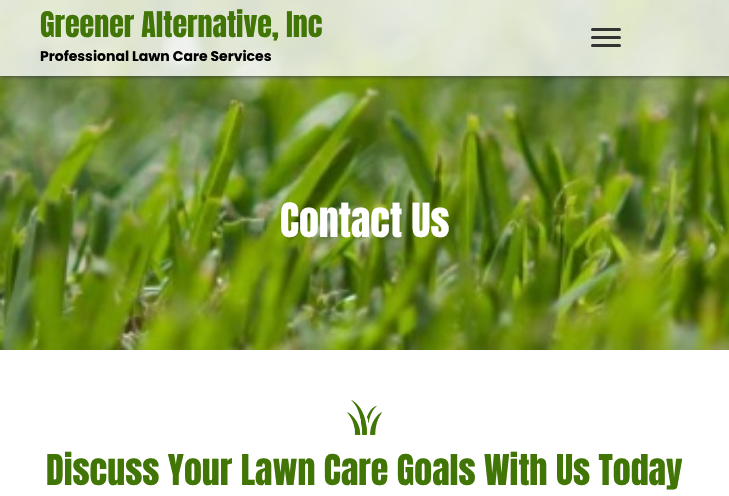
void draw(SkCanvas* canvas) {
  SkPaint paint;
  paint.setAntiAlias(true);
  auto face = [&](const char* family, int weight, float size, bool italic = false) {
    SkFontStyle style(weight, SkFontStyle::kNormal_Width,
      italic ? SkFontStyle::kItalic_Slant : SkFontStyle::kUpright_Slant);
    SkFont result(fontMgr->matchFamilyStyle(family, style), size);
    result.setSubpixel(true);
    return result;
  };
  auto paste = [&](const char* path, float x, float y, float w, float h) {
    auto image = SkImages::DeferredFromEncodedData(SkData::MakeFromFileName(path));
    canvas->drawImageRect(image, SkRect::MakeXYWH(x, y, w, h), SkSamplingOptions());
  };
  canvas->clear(0xffffffff);
  paste("img/1.png", 0, 0, 729, 350);
  canvas->save();
  canvas->clipRect(SkRect::MakeXYWH(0, 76, 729, 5));
  paint.setColor(0xff333333);
  paint.setMaskFilter(SkMaskFilter::MakeBlur(kNormal_SkBlurStyle, 2.5f));
  canvas->drawRect(SkRect::MakeXYWH(0, 0, 729, 76), paint);
  paint.setMaskFilter(nullptr);
  canvas->restore();
  paint.setColor(0xc9ffffff);
  canvas->drawRect(SkRect::MakeXYWH(0, 0, 729, 76), paint);
  paint.setColor(0xff333333);
  canvas->drawRoundRect(SkRect::MakeXYWH(591, 36, 30, 3), 1.5f, 1.5f, paint);
  canvas->drawRoundRect(SkRect::MakeXYWH(591, 28, 30, 3), 1.5f, 1.5f, paint);
  canvas->drawRoundRect(SkRect::MakeXYWH(591, 44, 30, 3), 1.5f, 1.5f, paint);
  paste("img/2.png", 347, 400, 35, 35);
  auto f0 = face("Anton", 400, 30);
  paint.setColor(0xff417505);
  canvas->drawString("Greener Alternative, Inc", 40, 37, f0, paint);
  auto f1 = face("Poppins", 700, 14);
  paint.setColor(0xff000000);
  canvas->drawString("Professional Lawn Care Services", 40, 61, f1, paint);
  auto f2 = face("Anton", 400, 40);
  paint.setColor(0xffffffff);
  canvas->drawString("Contact Us", 280, 237, f2, paint);
  auto f3 = face("Anton", 400, 36);
  paint.setColor(0xff417505);
  canvas->drawString("Discuss Your Lawn Care Goals With Us Today", 46, 485, f3, paint);
}
